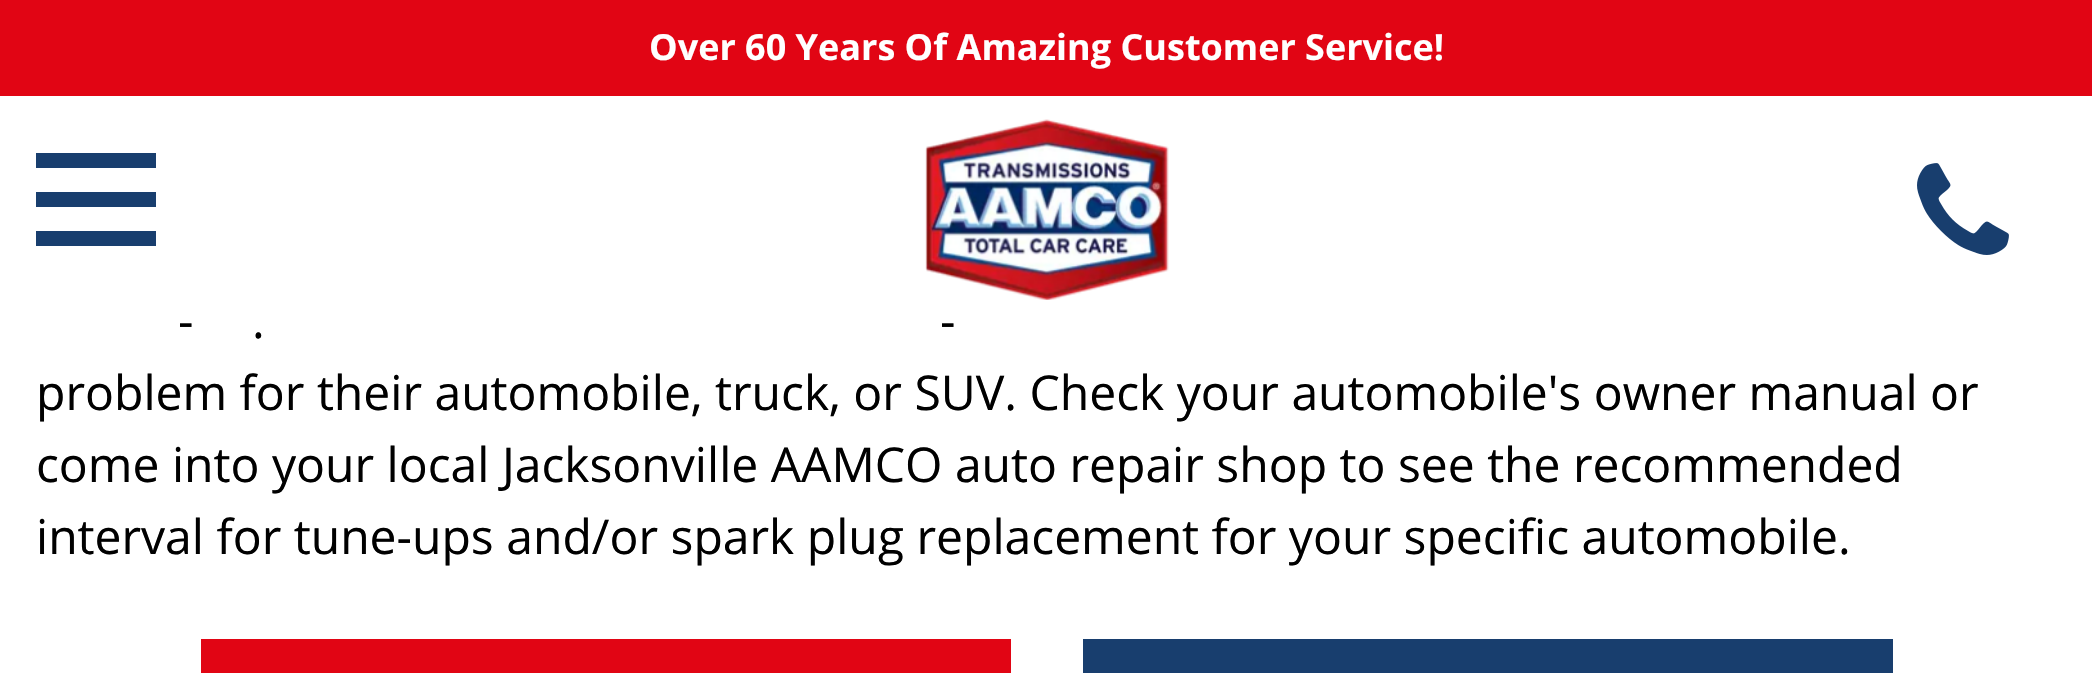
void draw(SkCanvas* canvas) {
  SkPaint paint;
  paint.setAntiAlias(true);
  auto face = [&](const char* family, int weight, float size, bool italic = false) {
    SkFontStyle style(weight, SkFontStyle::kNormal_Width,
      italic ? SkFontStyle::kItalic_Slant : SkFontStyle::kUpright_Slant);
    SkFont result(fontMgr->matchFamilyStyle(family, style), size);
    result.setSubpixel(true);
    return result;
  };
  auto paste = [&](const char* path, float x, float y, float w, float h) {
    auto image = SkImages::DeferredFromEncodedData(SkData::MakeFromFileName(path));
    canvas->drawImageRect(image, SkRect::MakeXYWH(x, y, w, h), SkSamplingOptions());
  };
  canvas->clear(0xffffffff);
  {
    const struct { float x, y, w, h; SkColor color; } items[] = {
      {0, 0, 2092, 96, 0xffe10514},
      {36, 231, 120, 15, 0xff183e6e},
      {36, 192, 120, 15, 0xff183e6e},
      {36, 153, 120, 15, 0xff183e6e},
    };
    for (auto [x, y, w, h, color] : items) {
      paint.setColor(color);
      canvas->drawRect(SkRect::MakeXYWH(x, y, w, h), paint);
    }
  }
  paste("img/1.png", 925, 119, 244, 181);
  paste("img/2.png", 1917, 163, 92, 92);
  paint.setColor(0xffe10514);
  canvas->drawRect(SkRect::MakeXYWH(201, 639, 810, 34), paint);
  paint.setColor(0xff183e6e);
  canvas->drawRect(SkRect::MakeXYWH(1083, 639, 810, 34), paint);
  auto f0 = face("Open Sans", 700, 36);
  paint.setColor(0xffffffff);
  canvas->drawString("Over 60 Years Of Amazing Customer Service!", 649, 60, f0, paint);
  auto f1 = face("Open Sans", 400, 48);
  paint.setColor(0xff000000);
  {
    const struct { const char* s; float x, y; } items[] = {
      {"-", 178, 338},
      {"-", 940, 338},
      {".", 252, 338},
      {"problem for their automobile, truck, or SUV. Check your automobile's owner manual or", 36, 410},
      {"come into your local Jacksonville AAMCO auto repair shop to see the recommended", 36, 482},
      {"interval for tune-ups and/or spark plug replacement for your specific automobile.", 36, 554},
    };
    for (auto [s, x, y] : items) {
      canvas->drawString(s, x, y, f1, paint);
    }
  }
}
